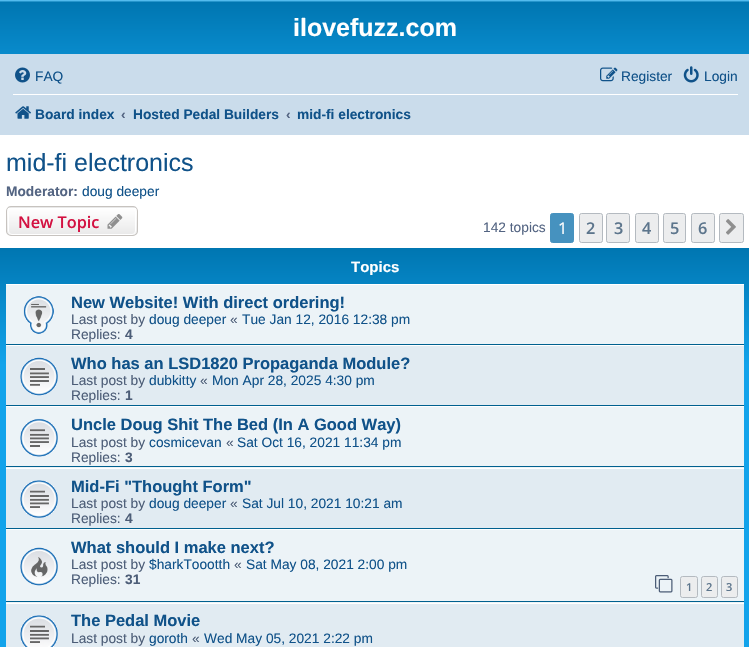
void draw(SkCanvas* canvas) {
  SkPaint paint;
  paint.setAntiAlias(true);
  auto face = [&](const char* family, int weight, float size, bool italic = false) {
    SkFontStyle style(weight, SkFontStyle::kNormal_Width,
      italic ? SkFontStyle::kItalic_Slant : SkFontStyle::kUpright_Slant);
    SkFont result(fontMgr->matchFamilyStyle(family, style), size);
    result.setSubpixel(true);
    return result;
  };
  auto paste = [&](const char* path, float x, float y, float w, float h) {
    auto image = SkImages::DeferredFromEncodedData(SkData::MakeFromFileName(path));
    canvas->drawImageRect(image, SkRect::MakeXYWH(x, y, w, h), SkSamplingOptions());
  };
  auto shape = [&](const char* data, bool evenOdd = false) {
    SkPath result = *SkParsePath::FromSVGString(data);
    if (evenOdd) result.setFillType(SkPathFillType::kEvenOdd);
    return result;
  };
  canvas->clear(0xffffffff);
  {
    const SkColor colors[] = {0xff6aceff, 0xff0076b1, 0xff12a3eb};
    const float stops[] = {0, 0.02f, 1};
    const SkPoint ends[] = {{375, 0}, {375, 115}};
    paint.setShader(SkGradientShader::MakeLinear(ends, colors, stops, 3, SkTileMode::kClamp));
    paint.setAlpha(255);
  }
  canvas->drawRect(SkRect::MakeXYWH(0, 0, 749, 54), paint);
  paint.setShader(nullptr);
  paint.setColor(0xffcadceb);
  canvas->drawRect(SkRect::MakeXYWH(0, 54, 749, 81), paint);
  paste("img/1.png", 15, 67, 15, 16);
  paste("img/2.png", 600, 67, 18, 15);
  paste("img/3.png", 683, 66, 16, 17);
  paint.setColor(0xffffffff);
  canvas->drawRect(SkRect::MakeXYWH(13, 94, 725, 1), paint);
  paste("img/4.png", 15, 106, 16, 13);
  canvas->save();
  canvas->clipPath(shape("M11 206H133C136 206 138 208 138 211V231C138 234 136 236 133 236H11C8 236 6 234 6 231V211C6 208 8 206 11 206Z"), true);
  {
    const SkColor colors[] = {0xffffffff, 0xffe9e9e9};
    const float stops[] = {0, 1};
    const SkPoint ends[] = {{72, 180}, {72, 208}};
    paint.setShader(SkGradientShader::MakeLinear(ends, colors, stops, 2, SkTileMode::kClamp));
    paint.setAlpha(255);
  }
  canvas->drawRect(SkRect::MakeXYWH(6, 206, 132, 2), paint);
  {
    const SkColor colors[] = {0xffffffff, 0xffe9e9e9};
    const float stops[] = {0, 1};
    const SkPoint ends[] = {{72, 208}, {72, 235}};
    paint.setShader(SkGradientShader::MakeLinear(ends, colors, stops, 2, SkTileMode::kClamp));
    paint.setAlpha(255);
  }
  canvas->drawRect(SkRect::MakeXYWH(6, 208, 132, 27), paint);
  canvas->restore();
  paint.setStroke(true);
  paint.setStrokeWidth(1);
  paint.setShader(nullptr);
  paint.setColor(0xffffffff);
  canvas->drawRoundRect(SkRect::MakeXYWH(8.5f, 208.5f, 127, 26), 3.5f, 3.5f, paint);
  paint.setColor(0xffc7c3bf);
  canvas->drawRoundRect(SkRect::MakeXYWH(6.5f, 206.5f, 131, 29), 4.5f, 4.5f, paint);
  paste("img/5.png", 107, 214, 16, 15);
  paint.setStroke(false);
  paint.setColor(0xff4692bf);
  canvas->drawRoundRect(SkRect::MakeXYWH(550.5f, 213.5f, 23, 29), 2, 2, paint);
  paint.setStroke(true);
  canvas->drawRoundRect(SkRect::MakeXYWH(550.5f, 213.5f, 23, 29), 2, 2, paint);
  paint.setStroke(false);
  paint.setColor(0xffecedee);
  canvas->drawRoundRect(SkRect::MakeXYWH(579.5f, 213.5f, 23, 29), 2, 2, paint);
  paint.setStroke(true);
  paint.setColor(0xffb4bac0);
  canvas->drawRoundRect(SkRect::MakeXYWH(579.5f, 213.5f, 23, 29), 2, 2, paint);
  paint.setStroke(false);
  paint.setColor(0xffecedee);
  canvas->drawRoundRect(SkRect::MakeXYWH(606.5f, 213.5f, 23, 29), 2, 2, paint);
  paint.setStroke(true);
  paint.setColor(0xffb4bac0);
  canvas->drawRoundRect(SkRect::MakeXYWH(606.5f, 213.5f, 23, 29), 2, 2, paint);
  paint.setStroke(false);
  paint.setColor(0xffecedee);
  canvas->drawRoundRect(SkRect::MakeXYWH(635.5f, 213.5f, 23, 29), 2, 2, paint);
  paint.setStroke(true);
  paint.setColor(0xffb4bac0);
  canvas->drawRoundRect(SkRect::MakeXYWH(635.5f, 213.5f, 23, 29), 2, 2, paint);
  paint.setStroke(false);
  paint.setColor(0xffecedee);
  canvas->drawRoundRect(SkRect::MakeXYWH(663.5f, 213.5f, 22, 29), 2, 2, paint);
  paint.setStroke(true);
  paint.setColor(0xffb4bac0);
  canvas->drawRoundRect(SkRect::MakeXYWH(663.5f, 213.5f, 22, 29), 2, 2, paint);
  paint.setStroke(false);
  paint.setColor(0xffecedee);
  canvas->drawRoundRect(SkRect::MakeXYWH(691.5f, 213.5f, 23, 29), 2, 2, paint);
  paint.setStroke(true);
  paint.setColor(0xffb4bac0);
  canvas->drawRoundRect(SkRect::MakeXYWH(691.5f, 213.5f, 23, 29), 2, 2, paint);
  paint.setStroke(false);
  paint.setColor(0xffecedee);
  canvas->drawRoundRect(SkRect::MakeXYWH(719.5f, 213.5f, 24, 29), 2, 2, paint);
  paint.setStroke(true);
  paint.setColor(0xffb4bac0);
  canvas->drawRoundRect(SkRect::MakeXYWH(719.5f, 213.5f, 24, 29), 2, 2, paint);
  paste("img/6.png", 726, 219, 10, 16);
  paint.setStroke(false);
  {
    const SkColor colors[] = {0xff6aceff, 0xff0076b1, 0xff12a3eb, 0xff12a3eb};
    const float stops[] = {0, 0, 0.07f, 1};
    const SkPoint ends[] = {{375, 248}, {375, 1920}};
    paint.setShader(SkGradientShader::MakeLinear(ends, colors, stops, 4, SkTileMode::kClamp));
    paint.setAlpha(255);
  }
  canvas->drawRect(SkRect::MakeXYWH(0, 248, 749, 399), paint);
  paint.setShader(nullptr);
  {
    const struct { float x, y, w, h; SkColor color; } items[] = {
      {6, 285, 738, 59, 0xffecf3f7},
      {6, 284, 738, 1, 0xffffffff},
      {6, 344, 738, 1, 0xff00608f},
    };
    for (auto [x, y, w, h, color] : items) {
      paint.setColor(color);
      canvas->drawRect(SkRect::MakeXYWH(x, y, w, h), paint);
    }
  }
  paste("img/7.png", 23, 296, 31, 38);
  {
    const struct { float x, y, w, h; SkColor color; } items[] = {
      {6, 346, 738, 59, 0xffe1ebf2},
      {6, 345, 738, 1, 0xffffffff},
      {6, 405, 738, 1, 0xff00608f},
    };
    for (auto [x, y, w, h, color] : items) {
      paint.setColor(color);
      canvas->drawRect(SkRect::MakeXYWH(x, y, w, h), paint);
    }
  }
  paste("img/8.png", 20, 357, 38, 39);
  {
    const struct { float x, y, w, h; SkColor color; } items[] = {
      {6, 407, 738, 61, 0xffecf3f7},
      {6, 406, 738, 1, 0xffffffff},
      {6, 466, 738, 1, 0xff00608f},
    };
    for (auto [x, y, w, h, color] : items) {
      paint.setColor(color);
      canvas->drawRect(SkRect::MakeXYWH(x, y, w, h), paint);
    }
  }
  paste("img/9.png", 20, 418, 38, 39);
  {
    const struct { float x, y, w, h; SkColor color; } items[] = {
      {6, 469, 738, 59, 0xffe1ebf2},
      {6, 468, 738, 1, 0xffffffff},
      {6, 528, 738, 1, 0xff00608f},
    };
    for (auto [x, y, w, h, color] : items) {
      paint.setColor(color);
      canvas->drawRect(SkRect::MakeXYWH(x, y, w, h), paint);
    }
  }
  paste("img/10.png", 20, 480, 38, 38);
  {
    const struct { float x, y, w, h; SkColor color; } items[] = {
      {6, 530, 738, 73, 0xffecf3f7},
      {6, 529, 738, 1, 0xffffffff},
      {6, 601, 738, 1, 0xff00608f},
    };
    for (auto [x, y, w, h, color] : items) {
      paint.setColor(color);
      canvas->drawRect(SkRect::MakeXYWH(x, y, w, h), paint);
    }
  }
  paste("img/11.png", 20, 547, 38, 39);
  paste("img/12.png", 655, 575, 18, 18);
  paint.setColor(0xffecedee);
  canvas->drawRoundRect(SkRect::MakeXYWH(680.5f, 576.5f, 17, 21), 2, 2, paint);
  paint.setStroke(true);
  paint.setColor(0xffb4bac0);
  canvas->drawRoundRect(SkRect::MakeXYWH(680.5f, 576.5f, 17, 21), 2, 2, paint);
  paint.setStroke(false);
  paint.setColor(0xffecedee);
  canvas->drawRoundRect(SkRect::MakeXYWH(701.5f, 576.5f, 16, 21), 2, 2, paint);
  paint.setStroke(true);
  paint.setColor(0xffb4bac0);
  canvas->drawRoundRect(SkRect::MakeXYWH(701.5f, 576.5f, 16, 21), 2, 2, paint);
  paint.setStroke(false);
  paint.setColor(0xffecedee);
  canvas->drawRoundRect(SkRect::MakeXYWH(721.5f, 576.5f, 16, 21), 2, 2, paint);
  paint.setStroke(true);
  paint.setColor(0xffb4bac0);
  canvas->drawRoundRect(SkRect::MakeXYWH(721.5f, 576.5f, 16, 21), 2, 2, paint);
  paint.setStroke(false);
  paint.setColor(0xffe1ebf2);
  canvas->drawRect(SkRect::MakeXYWH(6, 604, 738, 43), paint);
  paint.setColor(0xffffffff);
  canvas->drawRect(SkRect::MakeXYWH(6, 603, 738, 1), paint);
  paste("img/13.png", 20, 615, 38, 32);
  auto f0 = face("Liberation Sans", 700, 25);
  canvas->drawString("ilovefuzz.com", 293, 36, f0, paint);
  auto f1 = face("Liberation Sans", 400, 13.75f);
  paint.setColor(0xff105289);
  {
    const struct { const char* s; float x, y; } items[] = {
      {"FAQ", 35, 81},
      {"Register", 621, 81},
      {"Login", 704, 81},
    };
    for (auto [s, x, y] : items) {
      canvas->drawString(s, x, y, f1, paint);
    }
  }
  auto f2 = face("Liberation Sans", 700, 13.75f);
  canvas->drawString("Board index", 35, 119, f2, paint);
  paint.setColor(0xff536482);
  canvas->drawString("‹", 121, 119, f2, paint);
  paint.setColor(0xff105289);
  canvas->drawString("Hosted Pedal Builders", 133, 119, f2, paint);
  paint.setColor(0xff536482);
  canvas->drawString("‹", 286, 119, f2, paint);
  paint.setColor(0xff105289);
  canvas->drawString("mid-fi electronics", 297, 119, f2, paint);
  auto f3 = face("Liberation Sans", 400, 25);
  canvas->drawString("mid-fi electronics", 6, 171, f3, paint);
  paint.setColor(0xff536482);
  canvas->drawString("Moderator:", 6, 196, f2, paint);
  paint.setColor(0xff105289);
  canvas->drawString("doug deeper", 82, 196, f1, paint);
  auto f4 = face("Open Sans", 600, 16.25f);
  paint.setColor(0xffd31141);
  canvas->drawString("New Topic", 18, 228, f4, paint);
  paint.setColor(0xff536482);
  canvas->drawString("142 topics", 483, 232, f1, paint);
  auto f5 = face("Open Sans", 400, 16.25f);
  paint.setColor(0xffffffff);
  canvas->drawString("1", 558, 234, f5, paint);
  paint.setColor(0xff5c758c);
  {
    const struct { const char* s; float x, y; } items[] = {
      {"2", 586, 234},
      {"3", 614, 234},
      {"4", 642, 234},
      {"5", 670, 234},
      {"6", 698, 234},
    };
    for (auto [s, x, y] : items) {
      canvas->drawString(s, x, y, f4, paint);
    }
  }
  auto f6 = face("Liberation Sans", 700, 15);
  paint.setColor(0xffffffff);
  canvas->drawString("Topics", 351, 272, f6, paint);
  auto f7 = face("Liberation Sans", 700, 16.5f);
  paint.setColor(0xff105289);
  canvas->drawString("New Website! With direct ordering!", 71, 308, f7, paint);
  paint.setColor(0xff4c5d77);
  canvas->drawString("Last post by", 71, 324, f1, paint);
  paint.setColor(0xff105289);
  canvas->drawString("doug deeper", 149, 324, f1, paint);
  paint.setColor(0xff4c5d77);
  canvas->drawString("«", 230, 324, f1, paint);
  paint.setColor(0xff105289);
  canvas->drawString("Tue Jan 12, 2016 12:38 pm", 242, 324, f1, paint);
  paint.setColor(0xff4c5d77);
  canvas->drawString("Replies:", 71, 339, f1, paint);
  canvas->drawString("4", 125, 339, f2, paint);
  paint.setColor(0xff105289);
  canvas->drawString("Who has an LSD1820 Propaganda Module?", 71, 369, f7, paint);
  paint.setColor(0xff4c5d77);
  canvas->drawString("Last post by", 71, 385, f1, paint);
  paint.setColor(0xff105289);
  canvas->drawString("dubkitty", 149, 385, f1, paint);
  paint.setColor(0xff4c5d77);
  canvas->drawString("«", 200, 385, f1, paint);
  paint.setColor(0xff105289);
  canvas->drawString("Mon Apr 28, 2025 4:30 pm", 212, 385, f1, paint);
  paint.setColor(0xff4c5d77);
  canvas->drawString("Replies:", 71, 400, f1, paint);
  canvas->drawString("1", 125, 400, f2, paint);
  paint.setColor(0xff105289);
  canvas->drawString("Uncle Doug Shit The Bed (In A Good Way)", 71, 430, f7, paint);
  paint.setColor(0xff4c5d77);
  canvas->drawString("Last post by", 71, 447, f1, paint);
  paint.setColor(0xff105289);
  canvas->drawString("cosmicevan", 149, 447, f1, paint);
  paint.setColor(0xff4c5d77);
  canvas->drawString("«", 226, 447, f1, paint);
  paint.setColor(0xff105289);
  canvas->drawString("Sat Oct 16, 2021 11:34 pm", 237, 447, f1, paint);
  paint.setColor(0xff4c5d77);
  canvas->drawString("Replies:", 71, 462, f1, paint);
  canvas->drawString("3", 125, 462, f2, paint);
  paint.setColor(0xff105289);
  canvas->drawString("Mid-Fi \"Thought Form\"", 71, 492, f7, paint);
  paint.setColor(0xff4c5d77);
  canvas->drawString("Last post by", 71, 508, f1, paint);
  paint.setColor(0xff105289);
  canvas->drawString("doug deeper", 149, 508, f1, paint);
  paint.setColor(0xff4c5d77);
  canvas->drawString("«", 230, 508, f1, paint);
  paint.setColor(0xff105289);
  canvas->drawString("Sat Jul 10, 2021 10:21 am", 242, 508, f1, paint);
  paint.setColor(0xff4c5d77);
  canvas->drawString("Replies:", 71, 523, f1, paint);
  canvas->drawString("4", 125, 523, f2, paint);
  paint.setColor(0xff105289);
  canvas->drawString("What should I make next?", 71, 553, f7, paint);
  paint.setColor(0xff4c5d77);
  canvas->drawString("Last post by", 71, 569, f1, paint);
  paint.setColor(0xff105289);
  canvas->drawString("$harkToootth", 149, 569, f1, paint);
  paint.setColor(0xff4c5d77);
  canvas->drawString("«", 234, 569, f1, paint);
  paint.setColor(0xff105289);
  canvas->drawString("Sat May 08, 2021 2:00 pm", 246, 569, f1, paint);
  paint.setColor(0xff4c5d77);
  canvas->drawString("Replies:", 71, 584, f1, paint);
  canvas->drawString("31", 125, 584, f2, paint);
  auto f8 = face("Open Sans", 600, 11);
  paint.setColor(0xff5c758c);
  {
    const struct { const char* s; float x, y; } items[] = {
      {"1", 686, 591},
      {"2", 706, 591},
      {"3", 726, 591},
    };
    for (auto [s, x, y] : items) {
      canvas->drawString(s, x, y, f8, paint);
    }
  }
  paint.setColor(0xff105289);
  canvas->drawString("The Pedal Movie", 71, 626, f7, paint);
  paint.setColor(0xff4c5d77);
  canvas->drawString("Last post by", 71, 643, f1, paint);
  paint.setColor(0xff105289);
  canvas->drawString("goroth", 149, 643, f1, paint);
  paint.setColor(0xff4c5d77);
  canvas->drawString("«", 192, 643, f1, paint);
  paint.setColor(0xff105289);
  canvas->drawString("Wed May 05, 2021 2:22 pm", 204, 643, f1, paint);
}
